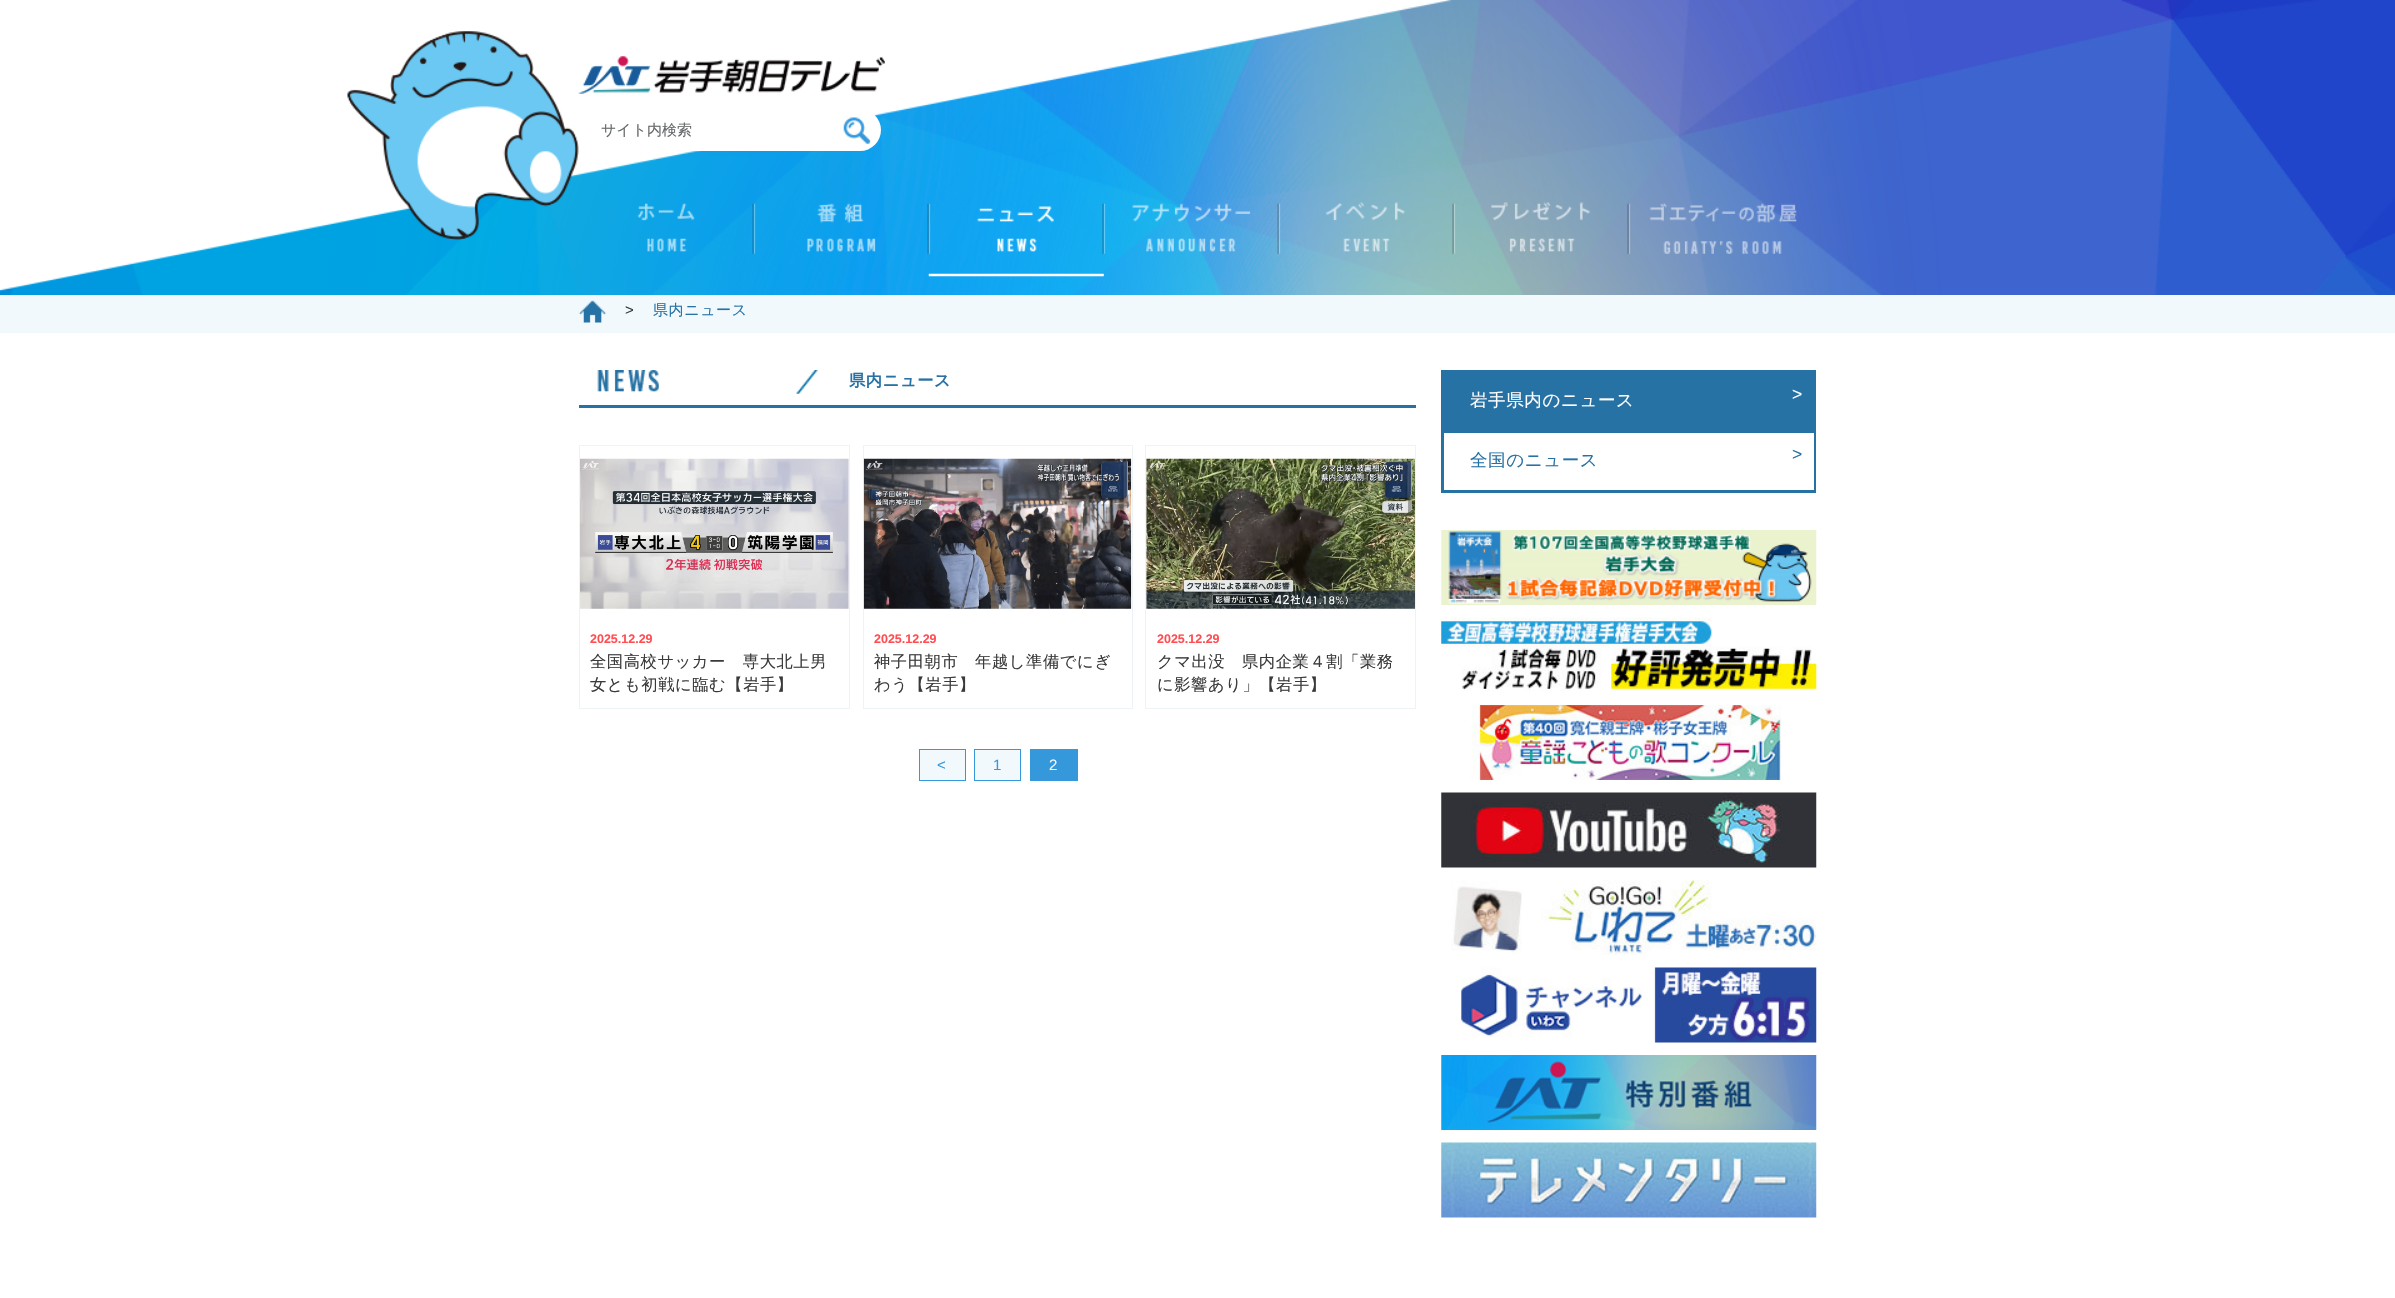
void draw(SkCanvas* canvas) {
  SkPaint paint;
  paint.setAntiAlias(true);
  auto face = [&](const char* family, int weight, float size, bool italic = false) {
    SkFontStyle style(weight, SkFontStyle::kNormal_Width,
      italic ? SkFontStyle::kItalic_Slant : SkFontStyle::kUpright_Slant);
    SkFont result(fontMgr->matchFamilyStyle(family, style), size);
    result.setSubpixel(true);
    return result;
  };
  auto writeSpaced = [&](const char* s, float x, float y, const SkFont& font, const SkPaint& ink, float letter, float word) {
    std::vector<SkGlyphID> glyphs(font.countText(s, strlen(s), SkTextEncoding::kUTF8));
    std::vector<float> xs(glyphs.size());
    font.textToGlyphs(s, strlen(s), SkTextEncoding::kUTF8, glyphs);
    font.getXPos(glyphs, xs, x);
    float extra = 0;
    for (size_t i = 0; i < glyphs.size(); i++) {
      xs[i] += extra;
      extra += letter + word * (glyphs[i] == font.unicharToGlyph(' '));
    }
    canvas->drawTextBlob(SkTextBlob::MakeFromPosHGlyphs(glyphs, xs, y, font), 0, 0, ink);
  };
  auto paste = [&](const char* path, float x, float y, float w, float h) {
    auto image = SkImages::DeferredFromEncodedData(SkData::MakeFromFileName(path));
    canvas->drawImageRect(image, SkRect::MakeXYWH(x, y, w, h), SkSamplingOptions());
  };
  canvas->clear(0xffffffff);
  paste("img/1.png", 0, 0, 2395, 295);
  paste("img/3.png", 578, 56, 307, 38);
  paste("img/2.png", 347, 31, 232, 209);
  paint.setColor(0xffffffff);
  canvas->drawRoundRect(SkRect::MakeXYWH(579, 109, 302, 42), 21, 21, paint);
  paste("img/4.png", 843, 117, 28, 27);
  paste("img/5.png", 637, 203, 117, 51);
  paste("img/6.png", 753, 203, 176, 51);
  paste("img/7.png", 928, 203, 176, 74);
  paste("img/8.png", 1103, 203, 176, 51);
  paste("img/9.png", 1278, 202, 176, 52);
  paste("img/10.png", 1453, 202, 176, 52);
  paste("img/11.png", 1628, 203, 169, 51);
  paint.setColor(0xfff1f9fd);
  canvas->drawRect(SkRect::MakeXYWH(0, 295, 2395, 38), paint);
  paste("img/12.png", 578, 300, 29, 23);
  paint.setColor(0xff2772a5);
  canvas->drawRect(SkRect::MakeXYWH(579, 405, 837, 3), paint);
  paste("img/13.png", 597, 370, 221, 24);
  paint.setStroke(true);
  paint.setStrokeWidth(1);
  paint.setColor(0xffedf4f8);
  canvas->drawRect(SkRect::MakeXYWH(579.5f, 445.5f, 270, 263), paint);
  paste("img/14.png", 580, 458, 269, 151);
  canvas->drawRect(SkRect::MakeXYWH(863.5f, 445.5f, 269, 263), paint);
  paste("img/15.png", 863, 458, 269, 151);
  canvas->drawRect(SkRect::MakeXYWH(1145.5f, 445.5f, 270, 263), paint);
  paste("img/16.png", 1146, 458, 269, 151);
  paint.setStroke(false);
  paint.setColor(0xfff1f9fd);
  canvas->drawRect(SkRect::MakeXYWH(919.5f, 749.5f, 46, 31), paint);
  paint.setStroke(true);
  paint.setColor(0xff3498db);
  canvas->drawRect(SkRect::MakeXYWH(919.5f, 749.5f, 46, 31), paint);
  paint.setStroke(false);
  paint.setColor(0xfff1f9fd);
  canvas->drawRect(SkRect::MakeXYWH(974.5f, 749.5f, 46, 31), paint);
  paint.setStroke(true);
  paint.setColor(0xff3498db);
  canvas->drawRect(SkRect::MakeXYWH(974.5f, 749.5f, 46, 31), paint);
  paint.setStroke(false);
  canvas->drawRect(SkRect::MakeXYWH(1030, 749, 48, 32), paint);
  paint.setStroke(true);
  paint.setStrokeWidth(3);
  paint.setColor(0xff2772a5);
  canvas->drawRect(SkRect::MakeXYWH(1442.5f, 371.5f, 372, 120), paint);
  paint.setStroke(false);
  {
    const struct { float x, y, w, h; SkColor color; } items[] = {
      {1444, 373, 369, 57, 0xff2772a5},
      {1813, 433, 1, 57, 0xffffffff},
      {1444, 430, 370, 3, 0xff2772a5},
    };
    for (auto [x, y, w, h, color] : items) {
      paint.setColor(color);
      canvas->drawRect(SkRect::MakeXYWH(x, y, w, h), paint);
    }
  }
  paste("img/17.png", 1441, 530, 376, 75);
  paste("img/18.png", 1441, 617, 376, 74);
  paste("img/19.png", 1471, 705, 311, 75);
  paste("img/20.png", 1441, 792, 376, 76);
  paste("img/21.png", 1451, 880, 366, 75);
  paste("img/22.png", 1461, 967, 356, 76);
  paste("img/23.png", 1441, 1055, 376, 75);
  paste("img/24.png", 1441, 1142, 376, 76);
  auto f0 = face("WenQuanYi Zen Hei", 500, 15);
  paint.setColor(0xff65686a);
  canvas->drawString("サイト内検索", 601, 135, f0, paint);
  auto f1 = face("Liberation Sans", 400, 15);
  paint.setColor(0xff383a3b);
  writeSpaced(">", 625, 315, f1, paint, 0.6f, 0);
  paint.setColor(0xff2772a5);
  writeSpaced("県内ニュース", 653, 315, f0, paint, 0.6f, 0);
  auto f2 = face("WenQuanYi Zen Hei", 700, 16.25f);
  writeSpaced("県内ニュース", 849, 386, f2, paint, 0.6f, 0);
  auto f3 = face("Liberation Sans", 700, 12.5f);
  paint.setColor(0xffff4d52);
  canvas->drawString("2025.12.29", 590, 643, f3, paint);
  auto f4 = face("WenQuanYi Zen Hei", 500, 16.25f);
  paint.setColor(0xff383a3b);
  writeSpaced("全国高校サッカー　専大北上男", 590, 667, f4, paint, 0.6f, 0);
  writeSpaced("女とも初戦に臨む【岩手】", 590, 690, f4, paint, 0.6f, 0);
  paint.setColor(0xffff4d52);
  canvas->drawString("2025.12.29", 874, 643, f3, paint);
  paint.setColor(0xff383a3b);
  writeSpaced("神子田朝市　年越し準備でにぎ", 874, 667, f4, paint, 0.6f, 0);
  writeSpaced("わう【岩手】", 874, 690, f4, paint, 0.6f, 0);
  paint.setColor(0xffff4d52);
  canvas->drawString("2025.12.29", 1157, 643, f3, paint);
  paint.setColor(0xff383a3b);
  writeSpaced("クマ出没　県内企業４割「業務", 1157, 667, f4, paint, 0.6f, 0);
  writeSpaced("に影響あり」【岩手】", 1157, 690, f4, paint, 0.6f, 0);
  paint.setColor(0xff3498db);
  writeSpaced("<", 937, 770, f1, paint, 0.6f, 0);
  writeSpaced("1", 993, 770, f1, paint, 0.6f, 0);
  paint.setColor(0xfff1f9fd);
  writeSpaced("2", 1049, 770, f1, paint, 0.6f, 0);
  auto f5 = face("WenQuanYi Zen Hei", 500, 17.5f);
  paint.setColor(0xffffffff);
  writeSpaced("岩手県内のニュース", 1470, 406, f5, paint, 0.6f, 0);
  auto f6 = face("Liberation Sans", 400, 17.5f);
  writeSpaced(">", 1792, 400, f6, paint, 0.6f, 0);
  paint.setColor(0xff2772a5);
  writeSpaced("全国のニュース", 1470, 466, f5, paint, 0.6f, 0);
  writeSpaced(">", 1792, 460, f6, paint, 0.6f, 0);
}
